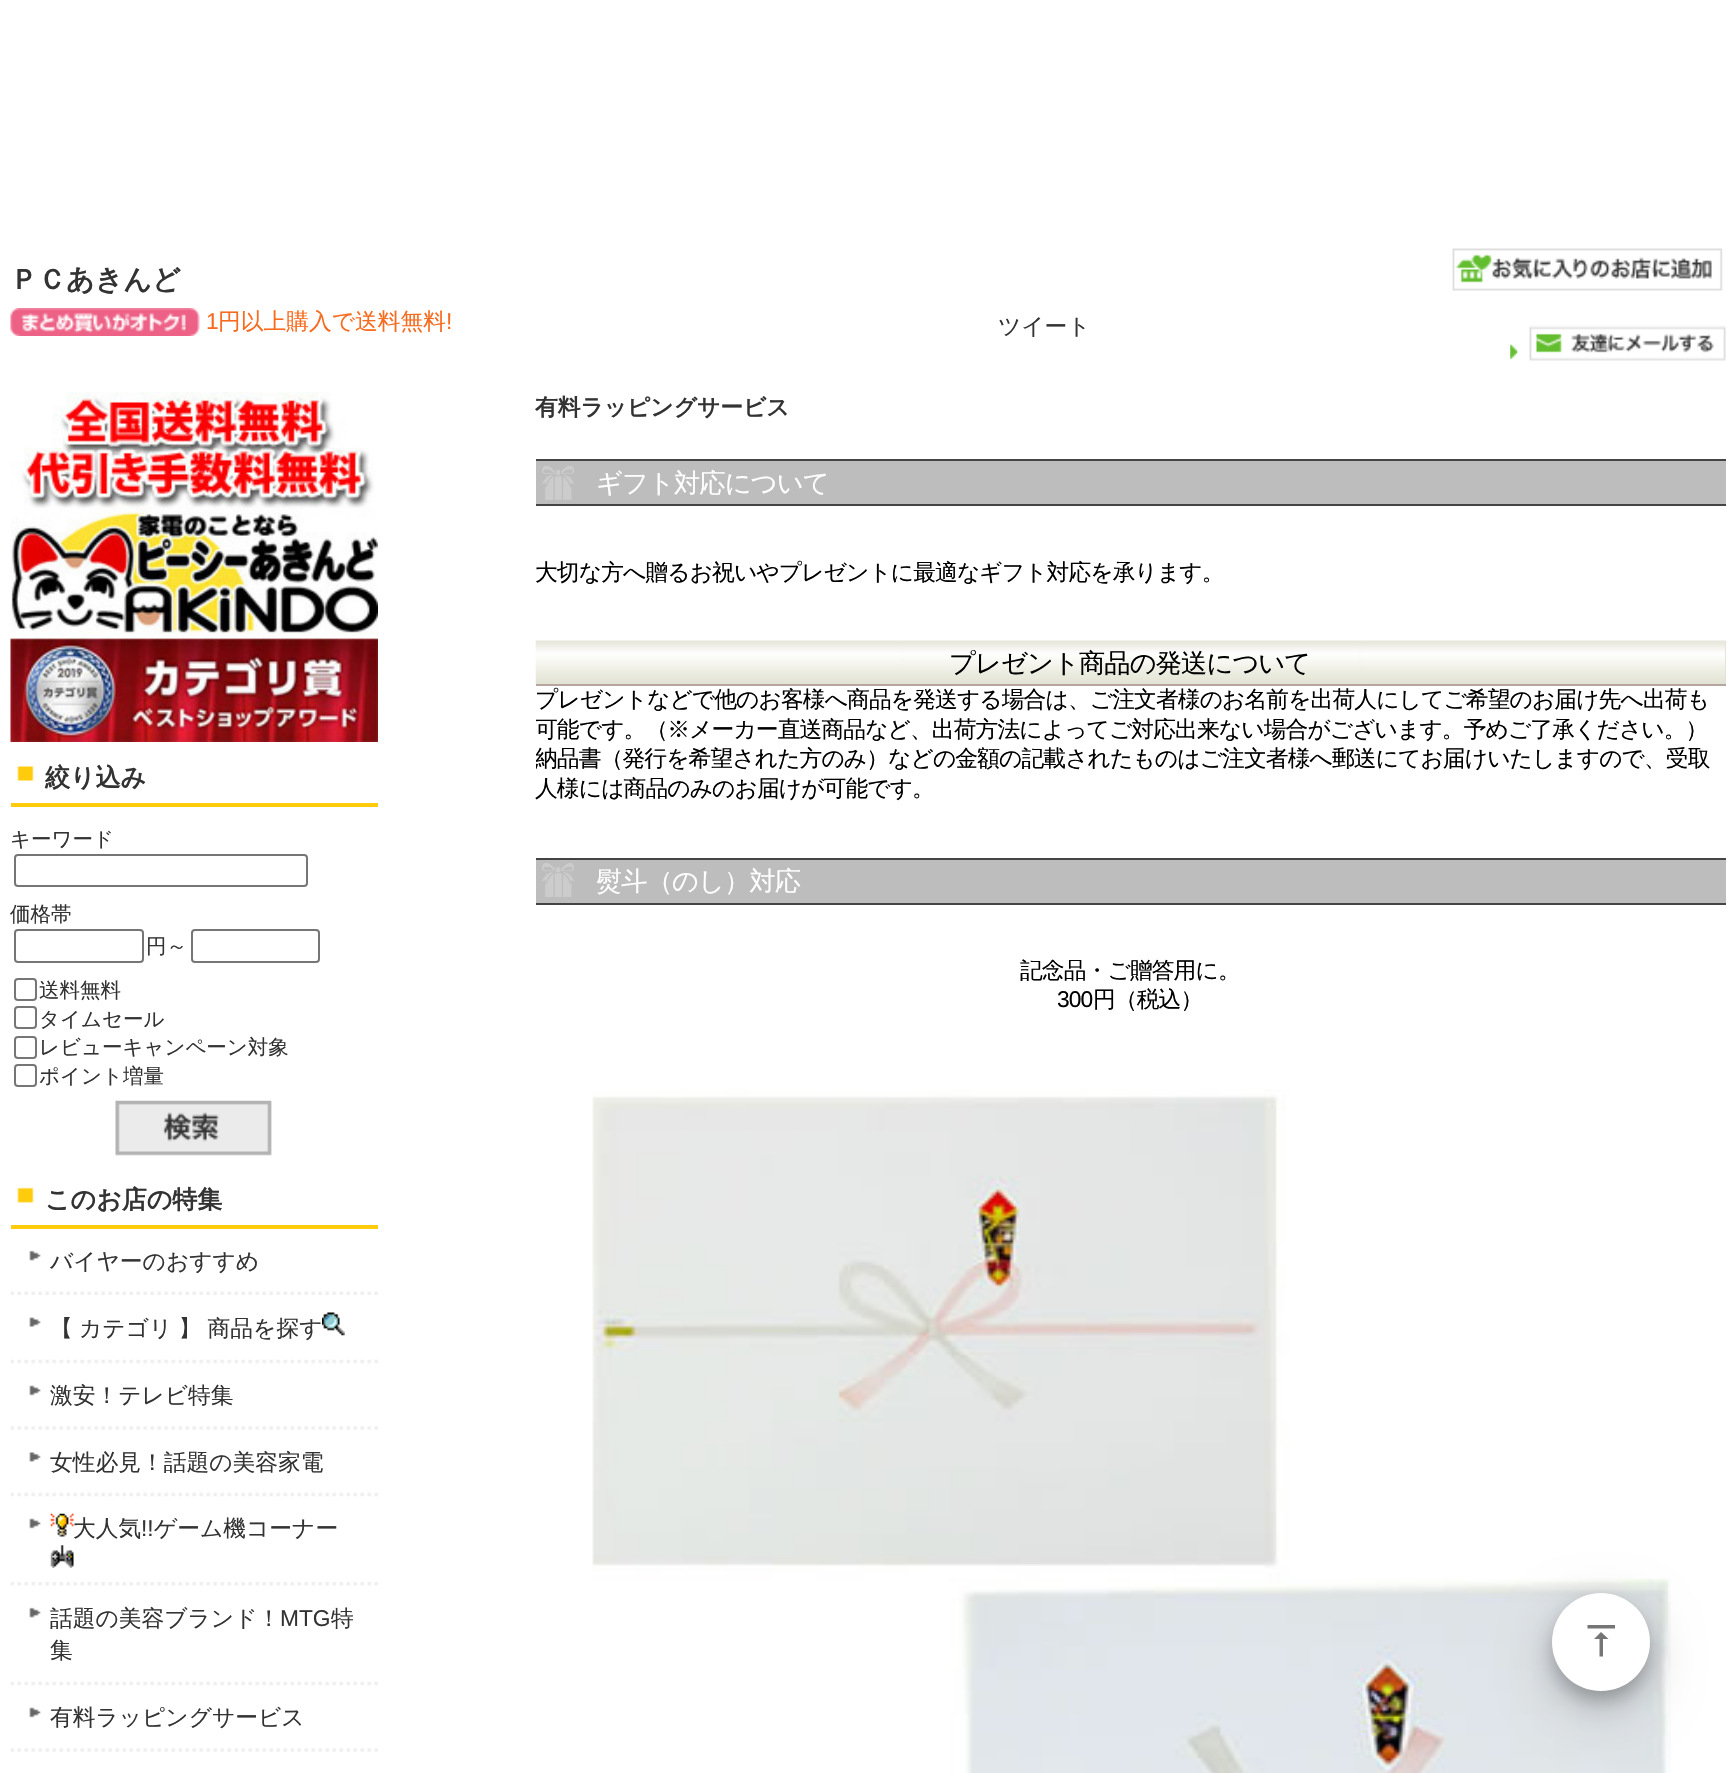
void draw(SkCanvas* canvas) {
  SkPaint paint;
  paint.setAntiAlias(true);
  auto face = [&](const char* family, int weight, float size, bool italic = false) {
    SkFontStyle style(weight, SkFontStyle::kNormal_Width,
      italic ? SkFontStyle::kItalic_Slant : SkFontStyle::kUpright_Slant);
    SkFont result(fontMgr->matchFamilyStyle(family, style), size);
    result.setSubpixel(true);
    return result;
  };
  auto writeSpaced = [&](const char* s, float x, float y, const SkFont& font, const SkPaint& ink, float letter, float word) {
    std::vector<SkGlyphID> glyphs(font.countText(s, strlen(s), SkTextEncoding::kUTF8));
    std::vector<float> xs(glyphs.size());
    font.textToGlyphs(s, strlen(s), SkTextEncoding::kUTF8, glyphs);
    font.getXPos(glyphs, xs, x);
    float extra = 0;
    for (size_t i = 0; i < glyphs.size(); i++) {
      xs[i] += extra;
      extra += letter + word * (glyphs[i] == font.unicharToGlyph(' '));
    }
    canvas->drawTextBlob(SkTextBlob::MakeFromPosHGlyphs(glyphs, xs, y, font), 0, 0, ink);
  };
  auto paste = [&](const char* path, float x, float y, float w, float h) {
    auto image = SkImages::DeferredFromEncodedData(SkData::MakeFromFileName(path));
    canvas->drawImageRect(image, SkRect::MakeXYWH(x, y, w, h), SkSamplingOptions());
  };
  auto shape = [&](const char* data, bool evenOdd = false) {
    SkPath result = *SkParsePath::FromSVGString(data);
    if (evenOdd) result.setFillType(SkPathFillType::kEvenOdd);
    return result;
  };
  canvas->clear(0xffffffff);
  paste("img/1.png", 10, 308, 190, 28);
  paste("img/2.png", 1452, 248, 271, 43);
  paste("img/3.png", 1510, 344, 8, 15);
  paste("img/4.png", 1529, 325, 197, 36);
  {
    const struct { float x, y, w, h; SkColor color; } items[] = {
      {536, 461, 1190, 43, 0xffbdbdbd},
      {536, 459, 1190, 2, 0xff444444},
      {536, 504, 1190, 2, 0xff444444},
    };
    for (auto [x, y, w, h, color] : items) {
      paint.setColor(color);
      canvas->drawRect(SkRect::MakeXYWH(x, y, w, h), paint);
    }
  }
  paste("img/5.png", 542, 466, 32, 34);
  paint.setColor(0xffdfe0d3);
  canvas->drawRect(SkRect::MakeXYWH(536, 641, 1190, 43), paint);
  paste("img/6.png", 535, 640, 1191, 44);
  {
    const struct { float x, y, w, h; SkColor color; } items[] = {
      {536, 684, 1190, 2, 0xffb6a69e},
      {536, 860, 1190, 43, 0xffbdbdbd},
      {536, 858, 1190, 2, 0xff444444},
      {536, 903, 1190, 2, 0xff444444},
    };
    for (auto [x, y, w, h, color] : items) {
      paint.setColor(color);
      canvas->drawRect(SkRect::MakeXYWH(x, y, w, h), paint);
    }
  }
  paste("img/7.png", 542, 863, 32, 34);
  paste("img/8.png", 592, 1089, 1079, 684);
  paste("img/9.png", 10, 392, 368, 350);
  paste("img/10.png", 17, 766, 17, 15);
  paint.setColor(0xffffcc0d);
  canvas->drawRect(SkRect::MakeXYWH(11, 803, 367, 4), paint);
  paint.setStroke(true);
  paint.setStrokeWidth(2);
  paint.setColor(0xff767676);
  canvas->drawRoundRect(SkRect::MakeXYWH(15, 855, 292, 31), 3, 3, paint);
  canvas->drawRoundRect(SkRect::MakeXYWH(15, 930, 128, 32), 3, 3, paint);
  canvas->drawRoundRect(SkRect::MakeXYWH(192, 930, 127, 32), 3, 3, paint);
  canvas->drawRoundRect(SkRect::MakeXYWH(15, 979, 21, 21), 3, 3, paint);
  canvas->drawRoundRect(SkRect::MakeXYWH(15, 1007, 21, 21), 3, 3, paint);
  canvas->drawRoundRect(SkRect::MakeXYWH(15, 1037, 21, 21), 3, 3, paint);
  canvas->drawRoundRect(SkRect::MakeXYWH(15, 1065, 21, 21), 3, 3, paint);
  paste("img/11.png", 115, 1100, 157, 56);
  paste("img/12.png", 17, 1187, 17, 16);
  paint.setStroke(false);
  paint.setColor(0xffffcc0d);
  canvas->drawRect(SkRect::MakeXYWH(11, 1225, 367, 4), paint);
  paste("img/13.png", 10, 1291, 368, 4);
  paste("img/14.png", 29, 1250, 12, 11);
  paste("img/15.png", 10, 1359, 368, 5);
  paste("img/16.png", 29, 1317, 12, 10);
  paste("img/17.png", 322, 1312, 23, 24);
  paste("img/18.png", 10, 1426, 368, 4);
  paste("img/19.png", 29, 1385, 12, 11);
  paste("img/15.png", 10, 1492, 368, 5);
  paste("img/20.png", 29, 1452, 12, 10);
  paste("img/21.png", 10, 1582, 368, 4);
  paste("img/19.png", 29, 1518, 12, 11);
  paste("img/22.png", 50, 1513, 24, 24);
  paste("img/23.png", 50, 1545, 24, 23);
  paste("img/15.png", 10, 1681, 368, 5);
  paste("img/14.png", 29, 1607, 12, 11);
  paste("img/18.png", 10, 1748, 368, 4);
  paste("img/19.png", 29, 1707, 12, 11);
  paint.setColor(0x30000000);
  paint.setMaskFilter(SkMaskFilter::MakeBlur(kNormal_SkBlurStyle, 26));
  canvas->drawRoundRect(SkRect::MakeXYWH(1552, 1610, 98, 98), 49, 49, paint);
  paint.setMaskFilter(nullptr);
  paint.setColor(0x3b000000);
  paint.setMaskFilter(SkMaskFilter::MakeBlur(kNormal_SkBlurStyle, 9));
  canvas->drawRoundRect(SkRect::MakeXYWH(1552, 1603, 98, 98), 49, 49, paint);
  paint.setMaskFilter(nullptr);
  paint.setColor(0xffffffff);
  canvas->drawCircle(1601, 1642, 49, paint);
  paint.setColor(0xff757575);
  canvas->drawPath(shape("M1594 1639H1599.5V1656.5H1603V1639H1608.5L1601 1632ZM1587.5 1625V1628.5H1615V1625Z"), paint);
  auto f0 = face("WenQuanYi Zen Hei", 700, 28);
  paint.setColor(0xff333333);
  canvas->drawString("ＰＣあきんど", 10, 289, f0, paint);
  auto f1 = face("Liberation Sans", 400, 22.75f);
  paint.setColor(0xfff76b1f);
  canvas->drawString("1", 206, 329, f1, paint);
  auto f2 = face("WenQuanYi Zen Hei", 500, 22.75f);
  canvas->drawString("円以上購入で送料無料", 218, 329, f2, paint);
  canvas->drawString("!", 446, 329, f1, paint);
  paint.setColor(0xff333333);
  canvas->drawString("ツイート", 998, 334, f2, paint);
  auto f3 = face("WenQuanYi Zen Hei", 700, 22.75f);
  canvas->drawString("有料ラッピングサービス", 535, 415, f3, paint);
  auto f4 = face("WenQuanYi Zen Hei", 500, 26.25f);
  paint.setColor(0xffffffff);
  writeSpaced("ギフト対応について", 596, 492, f4, paint, -0.88f, 0);
  paint.setColor(0xff000000);
  writeSpaced("大切な方へ贈るお祝いやプレゼントに最適なギフト対応を承ります。", 535, 580, f2, paint, -0.88f, 0);
  writeSpaced("プレゼント商品の発送について", 949, 672, f4, paint, -0.88f, 0);
  writeSpaced("プレゼントなどで他のお客様へ商品を発送する場合は、ご注文者様のお名前を出荷人にしてご希望のお届け先へ出荷も", 535, 707, f2, paint, -0.88f, 0);
  canvas->save();
  canvas->clipRect(SkRect::MakeXYWH(536, 459, 1190, 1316));
  writeSpaced("可能です。（※メーカー直送商品など、出荷方法によってご対応出来ない場合がございます。予めご了承ください。）", 535, 737, f2, paint, -0.88f, 0);
  writeSpaced("納品書（発行を希望された方のみ）などの金額の記載されたものはご注文者様へ郵送にてお届けいたしますので、受取", 535, 766, f2, paint, -0.88f, 0);
  canvas->restore();
  writeSpaced("人様には商品のみのお届けが可能です。", 535, 796, f2, paint, -0.88f, 0);
  paint.setColor(0xffffffff);
  writeSpaced("熨斗（のし）対応", 596, 890, f4, paint, -0.88f, 0);
  paint.setColor(0xff000000);
  writeSpaced("記念品・ご贈答用に。", 1020, 978, f2, paint, -0.88f, 0);
  writeSpaced("300", 1057, 1007, f1, paint, -0.88f, 0);
  writeSpaced("円（税込）", 1093, 1007, f2, paint, -0.88f, 0);
  auto f5 = face("WenQuanYi Zen Hei", 700, 25);
  paint.setColor(0xff333333);
  canvas->drawString("絞り込み", 45, 786, f5, paint);
  auto f6 = face("WenQuanYi Zen Hei", 500, 20.5f);
  {
    const struct { const char* s; float x, y; } items[] = {
      {"キーワード", 10, 846},
      {"価格帯", 10, 921},
      {"円～", 146, 953},
      {"送料無料", 39, 997},
      {"タイムセール", 39, 1026},
      {"レビューキャンペーン対象", 39, 1054},
      {"ポイント増量", 39, 1083},
    };
    for (auto [s, x, y] : items) {
      canvas->drawString(s, x, y, f6, paint);
    }
  }
  canvas->drawString("このお店の特集", 45, 1208, f5, paint);
  canvas->drawString("バイヤーのおすすめ", 50, 1269, f2, paint);
  writeSpaced("【 カテゴリ 】 商品を探す", 50, 1336, f2, paint, 0, -0.5f);
  {
    const struct { const char* s; float x, y; } items[] = {
      {"激安！テレビ特集", 50, 1403},
      {"女性必見！話題の美容家電", 50, 1470},
      {"大人気", 73, 1536},
    };
    for (auto [s, x, y] : items) {
      canvas->drawString(s, x, y, f2, paint);
    }
  }
  canvas->drawString("!!", 141, 1536, f1, paint);
  canvas->drawString("ゲーム機コーナー", 154, 1536, f2, paint);
  canvas->drawString("話題の美容ブランド！", 50, 1626, f2, paint);
  canvas->drawString("MTG", 280, 1626, f1, paint);
  {
    const struct { const char* s; float x, y; } items[] = {
      {"特", 331, 1626},
      {"集", 50, 1658},
      {"有料ラッピングサービス", 50, 1725},
    };
    for (auto [s, x, y] : items) {
      canvas->drawString(s, x, y, f2, paint);
    }
  }
}
